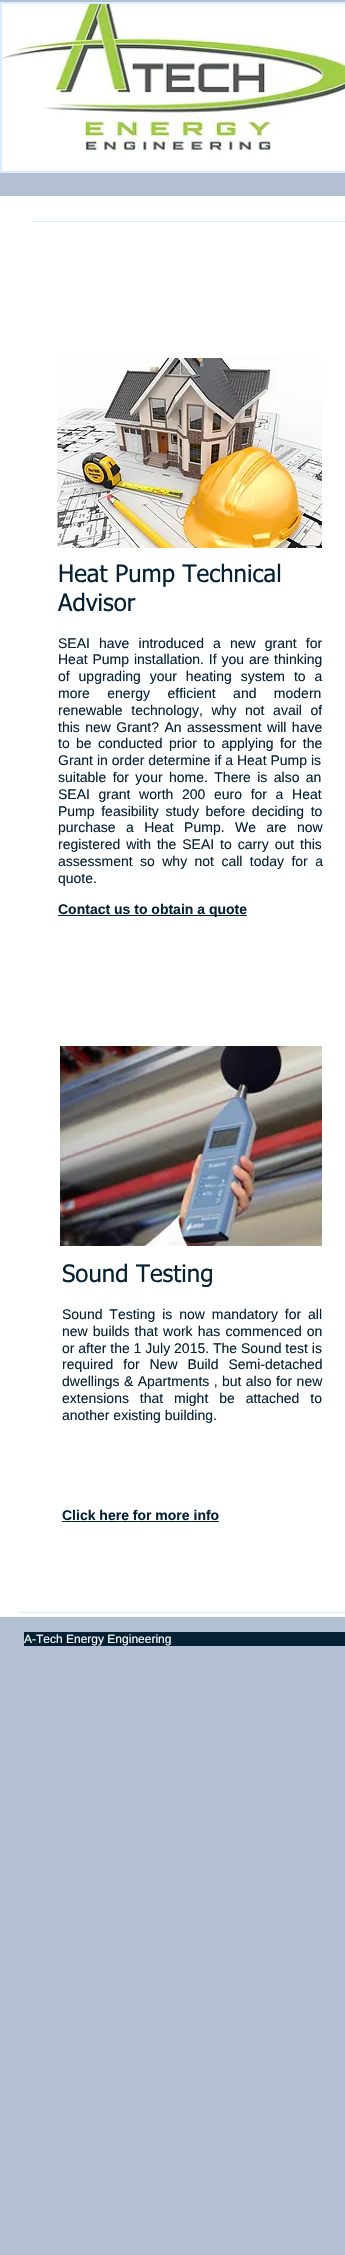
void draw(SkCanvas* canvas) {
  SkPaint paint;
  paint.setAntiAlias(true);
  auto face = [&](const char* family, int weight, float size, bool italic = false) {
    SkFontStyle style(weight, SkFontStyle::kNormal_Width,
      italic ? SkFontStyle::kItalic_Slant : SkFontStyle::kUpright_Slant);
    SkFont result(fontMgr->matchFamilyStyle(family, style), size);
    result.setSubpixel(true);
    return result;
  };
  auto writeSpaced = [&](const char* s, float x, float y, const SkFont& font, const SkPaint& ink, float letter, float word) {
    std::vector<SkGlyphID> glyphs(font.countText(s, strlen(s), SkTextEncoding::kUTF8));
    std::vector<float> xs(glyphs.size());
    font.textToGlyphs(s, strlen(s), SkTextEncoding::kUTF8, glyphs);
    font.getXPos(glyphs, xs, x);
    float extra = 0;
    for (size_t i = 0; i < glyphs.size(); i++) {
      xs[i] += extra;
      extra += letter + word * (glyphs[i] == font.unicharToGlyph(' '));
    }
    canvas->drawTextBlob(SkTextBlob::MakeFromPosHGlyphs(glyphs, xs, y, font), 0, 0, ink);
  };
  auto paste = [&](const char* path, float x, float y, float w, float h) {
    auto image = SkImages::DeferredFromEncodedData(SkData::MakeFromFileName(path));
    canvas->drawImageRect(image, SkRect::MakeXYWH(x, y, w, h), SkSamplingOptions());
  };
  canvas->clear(0xffb3c0d3);
  paint.setColor(0xffdaedff);
  canvas->drawRect(SkRect::MakeXYWH(0, 2, 345, 171), paint);
  paste("img/1.png", 2, 4, 343, 167);
  paint.setColor(0xffffffff);
  canvas->drawRect(SkRect::MakeXYWH(0, 196, 345, 1421), paint);
  paint.setColor(0xffdaedff);
  canvas->drawRect(SkRect::MakeXYWH(32, 221, 313, 1), paint);
  paste("img/2.png", 56, 358, 266, 190);
  paint.setColor(0xff062134);
  canvas->drawRect(SkRect::MakeXYWH(58, 915, 189, 1), paint);
  paste("img/3.png", 60, 1046, 262, 200);
  {
    const struct { float x, y, w, h; SkColor color; } items[] = {
      {62, 1521, 157, 1, 0xff062134},
      {20, 1612, 325, 1, 0xffdaedff},
      {24, 1632, 321, 14, 0xff062134},
    };
    for (auto [x, y, w, h, color] : items) {
      paint.setColor(color);
      canvas->drawRect(SkRect::MakeXYWH(x, y, w, h), paint);
    }
  }
  auto f0 = face("tahoma", 400, 24);
  canvas->drawString("Heat Pump Technical", 58, 582, f0, paint);
  canvas->drawString("Advisor", 58, 611, f0, paint);
  auto f1 = face("Liberation Sans", 400, 14);
  writeSpaced("SEAI have introduced a new grant for", 58, 648, f1, paint, 0, 5.25f);
  writeSpaced("Heat Pump installation. If you are thinking", 58, 664, f1, paint, 0, 1);
  writeSpaced("of upgrading your heating system to a", 58, 681, f1, paint, 0, 5);
  writeSpaced("more energy efficient and modern", 58, 698, f1, paint, 0, 13.5f);
  writeSpaced("renewable technology, why not avail of", 58, 715, f1, paint, 0, 4.75f);
  writeSpaced("this new Grant? An assessment will have", 58, 732, f1, paint, 0, 1.5f);
  writeSpaced("to be conducted prior to applying for the", 58, 748, f1, paint, 0, 2.5f);
  canvas->drawString("Grant in order determine if a Heat Pump is", 58, 765, f1, paint);
  writeSpaced("suitable for your home. There is also an", 58, 782, f1, paint, 0, 2.5f);
  writeSpaced("SEAI grant worth 200 euro for a Heat", 58, 799, f1, paint, 0, 4.75f);
  writeSpaced("Pump feasibility study before deciding to", 58, 816, f1, paint, 0, 2.75f);
  writeSpaced("purchase a Heat Pump. We are now", 58, 832, f1, paint, 0, 6.5f);
  writeSpaced("registered with the SEAI to carry out this", 58, 849, f1, paint, 0, 2);
  writeSpaced("assessment so why not call today for a", 58, 866, f1, paint, 0, 3.5f);
  canvas->drawString("quote.", 58, 883, f1, paint);
  auto f2 = face("Liberation Sans", 700, 14);
  canvas->drawString("Contact us to obtain a quote", 58, 914, f2, paint);
  canvas->drawString("Sound Testing", 62, 1282, f0, paint);
  writeSpaced("Sound Testing is now mandatory for all", 62, 1319, f1, paint, 0, 3);
  writeSpaced("new builds that work has commenced on", 62, 1336, f1, paint, 0, 1.25f);
  canvas->drawString("or after the 1 July 2015. The Sound test is", 62, 1353, f1, paint);
  writeSpaced("required for New Build Semi-detached", 62, 1369, f1, paint, 0, 6);
  writeSpaced("dwellings & Apartments , but also for new", 62, 1386, f1, paint, 0, 0.5f);
  writeSpaced("extensions that might be attached to", 62, 1403, f1, paint, 0, 7);
  canvas->drawString("another existing building.", 62, 1420, f1, paint);
  canvas->drawString("Click here for more info", 62, 1520, f2, paint);
  auto f3 = face("Liberation Sans", 400, 12);
  paint.setColor(0xffffffff);
  canvas->drawString("A-Tech Energy Engineering", 24, 1643, f3, paint);
}
